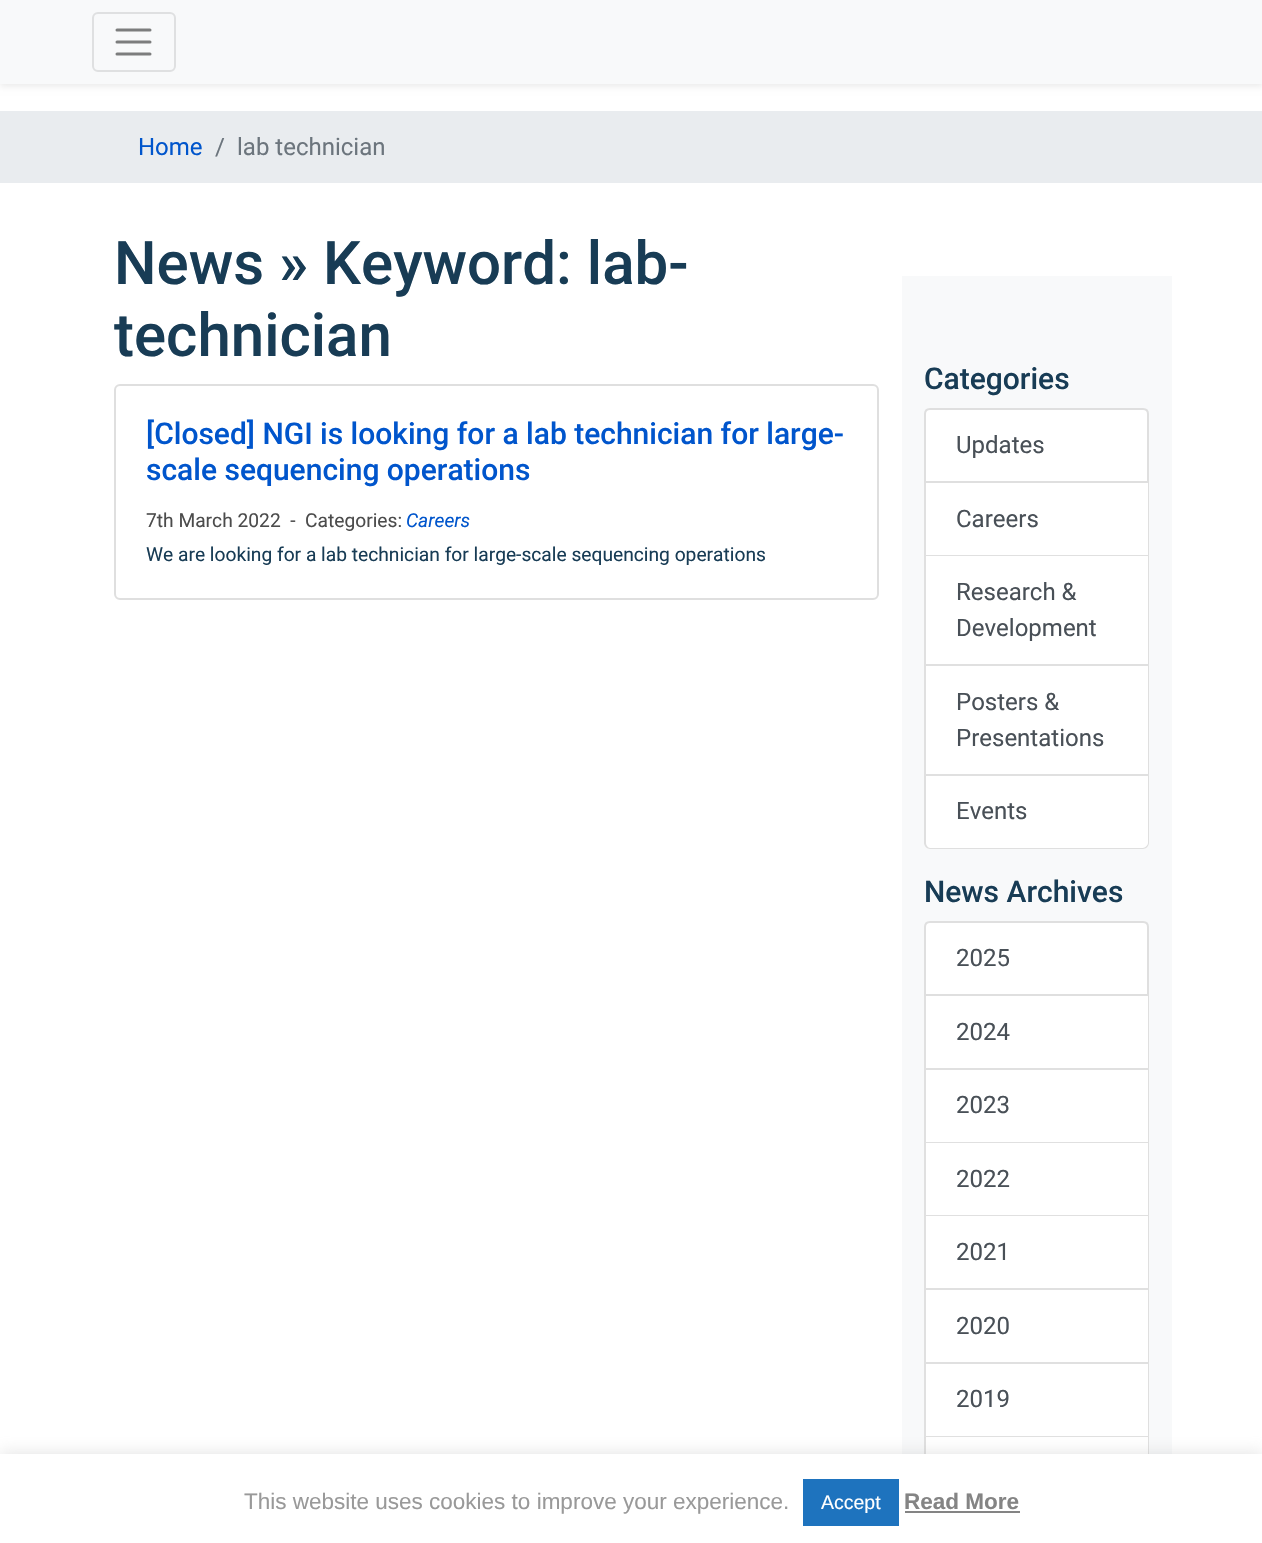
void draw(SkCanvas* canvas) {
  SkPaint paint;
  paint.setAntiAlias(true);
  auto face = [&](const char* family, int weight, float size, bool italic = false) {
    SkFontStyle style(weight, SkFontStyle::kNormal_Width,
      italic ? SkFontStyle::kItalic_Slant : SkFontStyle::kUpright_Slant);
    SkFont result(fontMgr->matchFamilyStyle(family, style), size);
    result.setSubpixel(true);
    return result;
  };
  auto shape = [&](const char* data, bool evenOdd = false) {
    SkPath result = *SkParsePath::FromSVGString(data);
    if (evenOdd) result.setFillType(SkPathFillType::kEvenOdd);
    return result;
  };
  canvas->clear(0xffffffff);
  paint.setColor(0x12000000);
  paint.setMaskFilter(SkMaskFilter::MakeBlur(kNormal_SkBlurStyle, 3));
  canvas->drawRect(SkRect::MakeXYWH(0, 3, 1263, 84), paint);
  paint.setMaskFilter(nullptr);
  paint.setColor(0xfff8f9fa);
  canvas->drawRect(SkRect::MakeXYWH(0, 0, 1262, 84), paint);
  paint.setStroke(true);
  paint.setStrokeWidth(2);
  paint.setColor(0xffdfe0e1);
  canvas->drawRoundRect(SkRect::MakeXYWH(93, 13, 82, 58), 5, 5, paint);
  paint.setStrokeWidth(3);
  paint.setStrokeCap(SkPaint::kRound_Cap);
  paint.setColor(0xff7c7d7d);
  canvas->drawPath(shape("M117 30H150M117 42H150M117 54H150"), paint);
  paint.setStroke(false);
  paint.setColor(0xffe9ecef);
  canvas->drawRect(SkRect::MakeXYWH(0, 111, 1262, 72), paint);
  paint.setStroke(true);
  paint.setStrokeWidth(2);
  paint.setStrokeCap(SkPaint::kButt_Cap);
  paint.setColor(0xffdfdfdf);
  canvas->drawRoundRect(SkRect::MakeXYWH(115, 385, 763, 214), 5, 5, paint);
  paint.setStroke(false);
  paint.setColor(0xfff8f9fa);
  canvas->drawRect(SkRect::MakeXYWH(902, 276, 270, 1178), paint);
  paint.setColor(0xffffffff);
  canvas->drawPath(shape("M930 409H1143C1146 409 1148 411 1148 414V482H925V414C925 411 927 409 930 409Z"), paint);
  paint.setStroke(true);
  paint.setColor(0xffdfdfdf);
  canvas->drawPath(shape("M930 409H1143C1146 409 1148 411 1148 414V482H925V414C925 411 927 409 930 409Z"), paint);
  paint.setStroke(false);
  paint.setColor(0xffffffff);
  canvas->drawRect(SkRect::MakeXYWH(924, 483, 225, 293), paint);
  paint.setColor(0xffdfdfdf);
  canvas->drawPath(shape("M1149 483V556L1148 555V483Z"), paint);
  paint.setColor(0x1f000000);
  canvas->drawPath(shape("M1149 556H924L926 555H1148Z"), paint);
  canvas->drawPath(shape("M924 556V483H926V555Z"), paint);
  paint.setColor(0xffdfdfdf);
  canvas->drawPath(shape("M1149 556V666L1148 664V556Z"), paint);
  paint.setColor(0x1f000000);
  canvas->drawPath(shape("M1149 666H924L926 664H1148Z"), paint);
  canvas->drawPath(shape("M924 666V556H926V664Z"), paint);
  paint.setColor(0xffdfdfdf);
  canvas->drawPath(shape("M1149 666V776L1148 774V666Z"), paint);
  paint.setColor(0x1f000000);
  canvas->drawPath(shape("M1149 776H924L926 774H1148Z"), paint);
  canvas->drawPath(shape("M924 776V666H926V774Z"), paint);
  paint.setColor(0xffffffff);
  canvas->drawPath(shape("M924 776H1149V843C1149 846.5 1146.5 849 1143 849H930C926.5 849 924 846.5 924 843Z"), paint);
  paint.setColor(0xffdfdfdf);
  canvas->drawPath(shape("M924 776H1149V843C1149 846 1146 849 1143 849H930C927 849 924 846 924 843ZM926 776H1148V843C1148 845 1145 848 1143 848H930C928 848 926 845 926 843Z", true), paint);
  paint.setColor(0xffffffff);
  canvas->drawPath(shape("M930 922H1143C1146 922 1148 924 1148 927V995H925V927C925 924 927 922 930 922Z"), paint);
  paint.setStroke(true);
  paint.setColor(0xffdfdfdf);
  canvas->drawPath(shape("M930 922H1143C1146 922 1148 924 1148 927V995H925V927C925 924 927 922 930 922Z"), paint);
  paint.setStroke(false);
  paint.setColor(0xffffffff);
  canvas->drawRect(SkRect::MakeXYWH(924, 996, 225, 441), paint);
  paint.setColor(0xffdfdfdf);
  canvas->drawPath(shape("M1149 996V1070L1148 1068V996Z"), paint);
  paint.setColor(0x1f000000);
  canvas->drawPath(shape("M1149 1070H924L926 1068H1148Z"), paint);
  canvas->drawPath(shape("M924 1070V996H926V1068Z"), paint);
  paint.setColor(0xffdfdfdf);
  canvas->drawPath(shape("M1149 1070V1143L1148 1142V1070Z"), paint);
  paint.setColor(0x1f000000);
  canvas->drawPath(shape("M1149 1143H924L926 1142H1148Z"), paint);
  canvas->drawPath(shape("M924 1143V1070H926V1142Z"), paint);
  paint.setColor(0xffdfdfdf);
  canvas->drawPath(shape("M1149 1143V1216L1148 1215V1143Z"), paint);
  paint.setColor(0x1f000000);
  canvas->drawPath(shape("M1149 1216H924L926 1215H1148Z"), paint);
  canvas->drawPath(shape("M924 1216V1143H926V1215Z"), paint);
  paint.setColor(0xffdfdfdf);
  canvas->drawPath(shape("M1149 1216V1290L1148 1288V1216Z"), paint);
  paint.setColor(0x1f000000);
  canvas->drawPath(shape("M1149 1290H924L926 1288H1148Z"), paint);
  canvas->drawPath(shape("M924 1290V1216H926V1288Z"), paint);
  paint.setColor(0xffdfdfdf);
  canvas->drawPath(shape("M1149 1290V1364L1148 1362V1290Z"), paint);
  paint.setColor(0x1f000000);
  canvas->drawPath(shape("M1149 1364H924L926 1362H1148Z"), paint);
  canvas->drawPath(shape("M924 1364V1290H926V1362Z"), paint);
  paint.setColor(0xffdfdfdf);
  canvas->drawPath(shape("M1149 1364V1437L1148 1436V1364Z"), paint);
  paint.setColor(0x1f000000);
  canvas->drawPath(shape("M1149 1437H924L926 1436H1148Z"), paint);
  canvas->drawPath(shape("M924 1437V1364H926V1436Z"), paint);
  paint.setColor(0xffffffff);
  canvas->drawRect(SkRect::MakeXYWH(926, 1437, 222, 17), paint);
  paint.setColor(0xffdfdfdf);
  canvas->drawPath(shape("M924 1437H1149V1504C1149 1508 1146 1510 1143 1510H930C927 1510 924 1508 924 1504ZM926 1437H1148V1504C1148 1507 1145 1509 1143 1509H930C928 1509 926 1507 926 1504Z", true), paint);
  paint.setColor(0x4dacabab);
  paint.setMaskFilter(SkMaskFilter::MakeBlur(kNormal_SkBlurStyle, 7.5f));
  canvas->drawRect(SkRect::MakeXYWH(0, 1452, 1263, 90), paint);
  paint.setMaskFilter(nullptr);
  {
    const struct { float x, y, w, h; SkColor color; } items[] = {
      {0, 1454, 1262, 89, 0xffffffff},
      {803, 1479, 96, 47, 0xff1e73be},
      {905, 1511, 115, 2, 0xff848484},
    };
    for (auto [x, y, w, h, color] : items) {
      paint.setColor(color);
      canvas->drawRect(SkRect::MakeXYWH(x, y, w, h), paint);
    }
  }
  auto f0 = face("Roboto", 400, 24);
  paint.setColor(0xff0055cc);
  canvas->drawString("Home", 138, 155, f0, paint);
  paint.setColor(0xff6c757d);
  canvas->drawString("/", 215, 155, f0, paint);
  canvas->drawString("lab technician", 237, 155, f0, paint);
  auto f1 = face("Roboto", 500, 60);
  paint.setColor(0xff183c55);
  canvas->drawString("News » Keyword: lab-", 114, 284, f1, paint);
  canvas->drawString("technician", 114, 356, f1, paint);
  auto f2 = face("Roboto", 500, 30);
  paint.setColor(0xff0055cc);
  canvas->drawString("[Closed] NGI is looking for a lab technician for large-", 146, 444, f2, paint);
  canvas->drawString("scale sequencing operations", 146, 480, f2, paint);
  auto f3 = face("Roboto", 400, 19.2f);
  paint.setColor(0xff4c4c4c);
  canvas->drawString("7th March 2022  -  Categories:", 146, 527, f3, paint);
  auto f4 = face("Roboto", 400, 19.2f, true);
  paint.setColor(0xff0055cc);
  canvas->drawString("Careers", 406, 527, f4, paint);
  paint.setColor(0xff183c55);
  canvas->drawString("We are looking for a lab technician for large-scale sequencing operations", 146, 561, f3, paint);
  canvas->drawString("Categories", 924, 389, f2, paint);
  paint.setColor(0xff495057);
  {
    const struct { const char* s; float x, y; } items[] = {
      {"Updates", 956, 453},
      {"Careers", 956, 527},
      {"Research &", 956, 600},
      {"Development", 956, 636},
      {"Posters &", 956, 710},
      {"Presentations", 956, 746},
      {"Events", 956, 819},
    };
    for (auto [s, x, y] : items) {
      canvas->drawString(s, x, y, f0, paint);
    }
  }
  paint.setColor(0xff183c55);
  canvas->drawString("News Archives", 924, 902, f2, paint);
  paint.setColor(0xff495057);
  {
    const struct { const char* s; float x, y; } items[] = {
      {"2025", 956, 966},
      {"2024", 956, 1040},
      {"2023", 956, 1113},
      {"2022", 956, 1187},
      {"2021", 956, 1260},
      {"2020", 956, 1334},
      {"2019", 956, 1407},
    };
    for (auto [s, x, y] : items) {
      canvas->drawString(s, x, y, f0, paint);
    }
  }
  auto f5 = face("Liberation Sans", 400, 22.5f);
  paint.setColor(0xff999999);
  canvas->drawString("This website uses cookies to improve your experience.", 244, 1509, f5, paint);
  auto f6 = face("Liberation Sans", 400, 19.5f);
  paint.setColor(0xffffffff);
  canvas->drawString("Accept", 821, 1509, f6, paint);
  auto f7 = face("Liberation Sans", 700, 22.5f);
  paint.setColor(0xff848484);
  canvas->drawString("Read More", 904, 1509, f7, paint);
}
